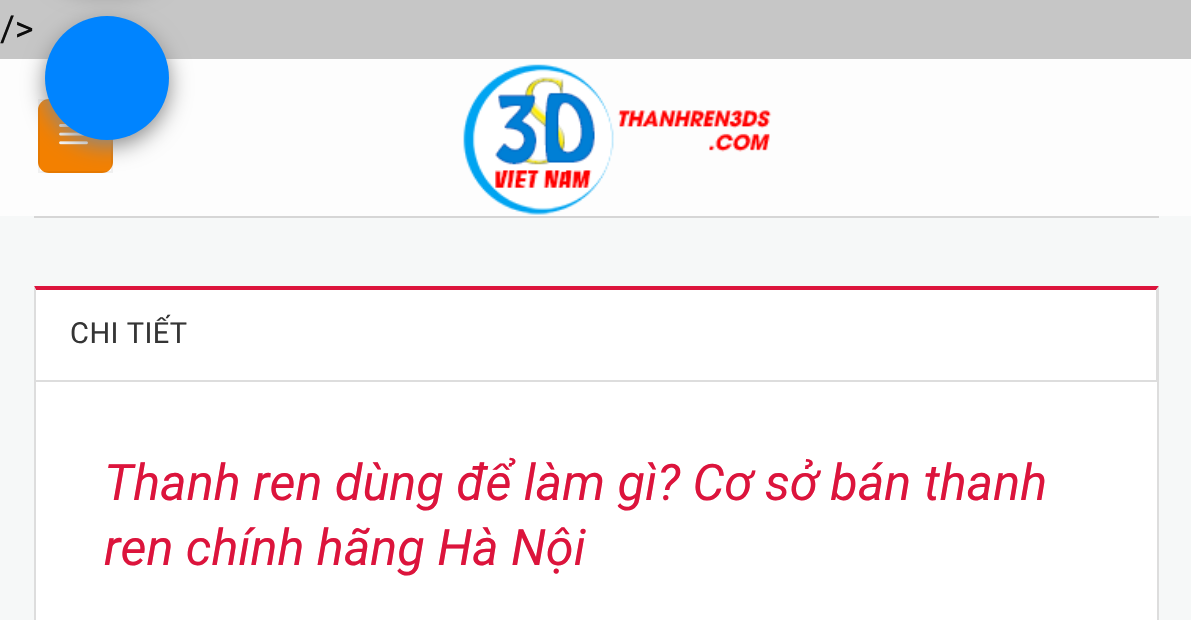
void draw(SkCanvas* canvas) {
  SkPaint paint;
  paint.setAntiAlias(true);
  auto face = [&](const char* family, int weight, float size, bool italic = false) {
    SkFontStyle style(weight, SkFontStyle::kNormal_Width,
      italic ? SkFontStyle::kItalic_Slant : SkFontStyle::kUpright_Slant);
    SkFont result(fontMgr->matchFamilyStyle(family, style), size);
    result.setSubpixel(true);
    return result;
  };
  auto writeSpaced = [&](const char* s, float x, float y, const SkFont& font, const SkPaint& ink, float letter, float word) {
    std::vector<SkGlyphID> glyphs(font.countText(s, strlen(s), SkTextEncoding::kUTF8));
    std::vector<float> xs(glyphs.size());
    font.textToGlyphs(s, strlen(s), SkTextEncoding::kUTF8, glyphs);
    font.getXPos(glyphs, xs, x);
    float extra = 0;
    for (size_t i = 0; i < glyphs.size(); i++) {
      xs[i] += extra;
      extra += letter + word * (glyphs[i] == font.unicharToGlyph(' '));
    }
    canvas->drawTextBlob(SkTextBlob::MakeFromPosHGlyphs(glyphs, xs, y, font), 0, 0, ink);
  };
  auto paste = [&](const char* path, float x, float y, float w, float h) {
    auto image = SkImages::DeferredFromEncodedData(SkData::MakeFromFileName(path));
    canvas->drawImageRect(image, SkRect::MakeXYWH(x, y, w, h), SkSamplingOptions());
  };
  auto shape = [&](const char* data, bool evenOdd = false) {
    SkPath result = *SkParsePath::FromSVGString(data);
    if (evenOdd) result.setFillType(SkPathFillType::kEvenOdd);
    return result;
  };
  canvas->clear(0xffc6c6c6);
  paint.setColor(0xfff6f8f8);
  canvas->drawRect(SkRect::MakeXYWH(0, 216, 1191, 404), paint);
  paint.setColor(0xff888888);
  paint.setMaskFilter(SkMaskFilter::MakeBlur(kNormal_SkBlurStyle, 11));
  canvas->drawRoundRect(SkRect::MakeXYWH(45, -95, 124, 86), 62, 62, paint);
  paint.setMaskFilter(nullptr);
  paint.setColor(0xfffdfdfd);
  canvas->drawRect(SkRect::MakeXYWH(0, 59, 1191, 157), paint);
  paint.setColor(0xfff38000);
  canvas->drawRoundRect(SkRect::MakeXYWH(38, 99, 75, 74), 11, 11, paint);
  paint.setStroke(true);
  paint.setStrokeWidth(2);
  paint.setColor(0x0d000000);
  canvas->drawRect(SkRect::MakeXYWH(39, 100, 73, 72), paint);
  paste("img/1.png", 59, 124, 29, 21);
  paint.setStroke(false);
  paint.setColor(0xff888888);
  paint.setMaskFilter(SkMaskFilter::MakeBlur(kNormal_SkBlurStyle, 11));
  canvas->drawRoundRect(SkRect::MakeXYWH(45, 23, 124, 123), 61.5f, 61.5f, paint);
  paint.setMaskFilter(nullptr);
  paint.setColor(0xff0084ff);
  canvas->drawCircle(107, 78, 62, paint);
  paste("img/2.png", 463, 64, 309, 151);
  paint.setColor(0xffd6d6d6);
  canvas->drawRect(SkRect::MakeXYWH(34, 216, 1125, 2), paint);
  paint.setColor(0xffffffff);
  canvas->drawRect(SkRect::MakeXYWH(34, 286, 1125, 94), paint);
  paint.setColor(0xffdc143c);
  canvas->drawPath(shape("M34 286H1159L1156 290H36Z"), paint);
  paint.setColor(0xffdddddd);
  canvas->drawPath(shape("M1159 286V380H1156V290Z"), paint);
  canvas->drawPath(shape("M34 380V286L36 290V380Z"), paint);
  paint.setColor(0xffffffff);
  canvas->drawRect(SkRect::MakeXYWH(35, 381, 1123, 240), paint);
  paint.setStroke(true);
  paint.setColor(0xffdddddd);
  canvas->drawRect(SkRect::MakeXYWH(35, 381, 1123, 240), paint);
  auto f0 = face("Roboto", 400, 36);
  paint.setStroke(false);
  paint.setColor(0xff0c0c0c);
  canvas->drawString("/>", 0, 41, f0, paint);
  auto f1 = face("Roboto", 400, 29);
  paint.setColor(0xff353535);
  writeSpaced("CHI TIẾT", 70, 343, f1, paint, 0.5f, 0);
  auto f2 = face("Roboto", 400, 50.4f, true);
  paint.setColor(0xffdc143c);
  canvas->drawString("Thanh ren dùng để làm gì? Cơ sở bán thanh", 104, 500, f2, paint);
  canvas->drawString("ren chính hãng Hà Nội", 104, 565, f2, paint);
}
